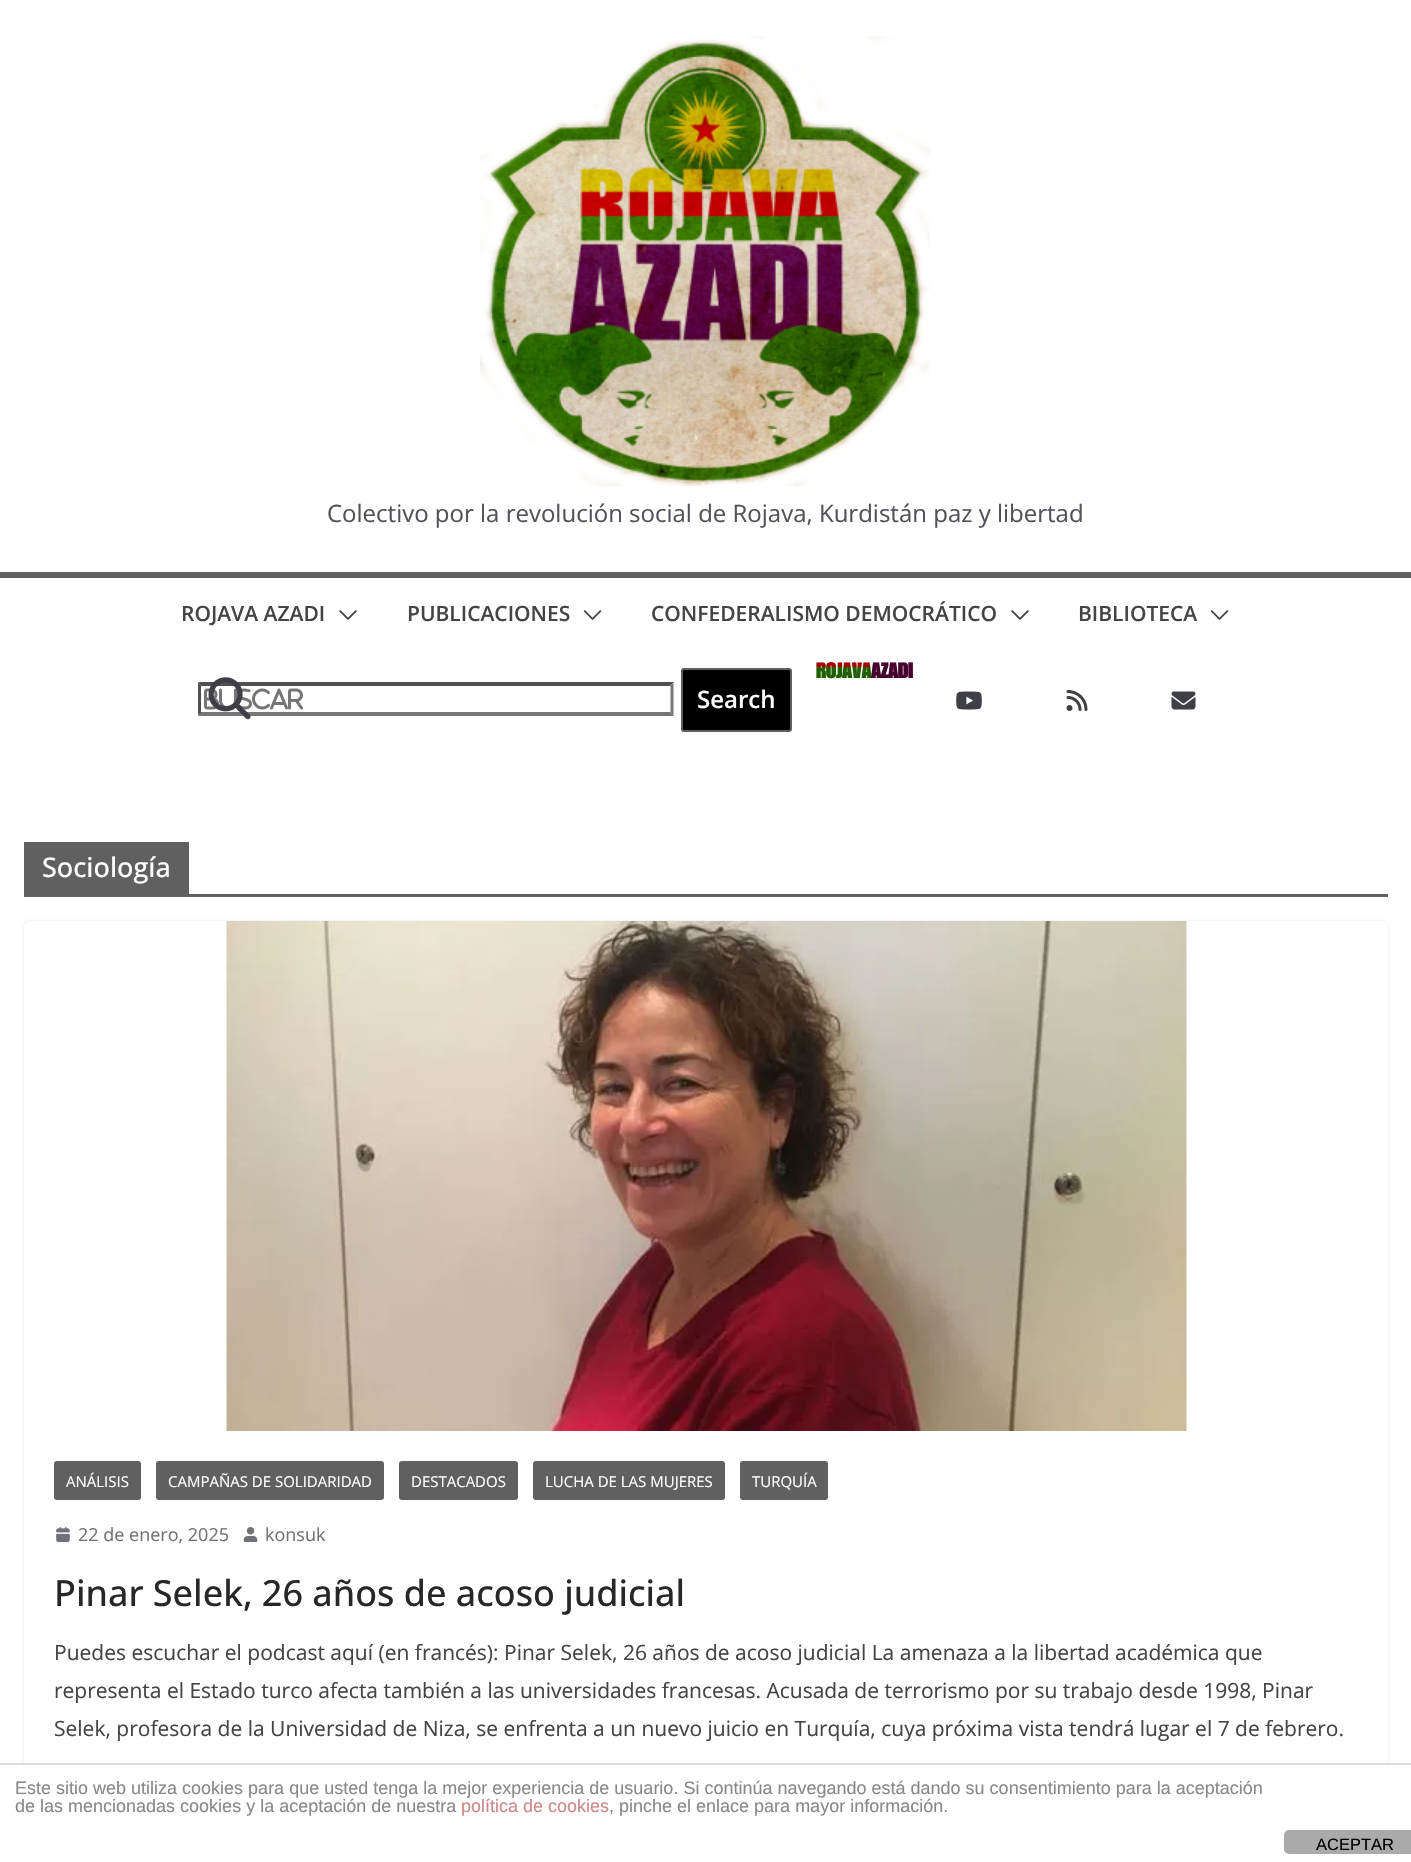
void draw(SkCanvas* canvas) {
  SkPaint paint;
  paint.setAntiAlias(true);
  auto face = [&](const char* family, int weight, float size, bool italic = false) {
    SkFontStyle style(weight, SkFontStyle::kNormal_Width,
      italic ? SkFontStyle::kItalic_Slant : SkFontStyle::kUpright_Slant);
    SkFont result(fontMgr->matchFamilyStyle(family, style), size);
    result.setSubpixel(true);
    return result;
  };
  auto paste = [&](const char* path, float x, float y, float w, float h) {
    auto image = SkImages::DeferredFromEncodedData(SkData::MakeFromFileName(path));
    canvas->drawImageRect(image, SkRect::MakeXYWH(x, y, w, h), SkSamplingOptions());
  };
  auto shape = [&](const char* data, bool evenOdd = false) {
    SkPath result = *SkParsePath::FromSVGString(data);
    if (evenOdd) result.setFillType(SkPathFillType::kEvenOdd);
    return result;
  };
  canvas->clear(0xffffffff);
  paste("img/1.png", 480, 36, 450, 450);
  paint.setColor(0xff606060);
  canvas->drawRect(SkRect::MakeXYWH(0, 572, 1411, 6), paint);
  paste("img/2.png", 339, 610, 18, 10);
  paste("img/3.png", 583, 610, 19, 10);
  paste("img/2.png", 1011, 610, 18, 10);
  paste("img/3.png", 1210, 610, 19, 10);
  paint.setColor(0xff4f4f4f);
  canvas->drawPath(shape("M198 682H674L670 686H201Z"), paint);
  paint.setColor(0xff767676);
  canvas->drawPath(shape("M673.5 682.5V715.5L670.5 712.5V685.5Z"), paint);
  canvas->drawPath(shape("M674 716H198L201 712H670Z"), paint);
  paste("img/5.png", 204, 688, 99, 22);
  paste("img/4.png", 208, 677, 43, 43);
  paint.setColor(0xff4f4f4f);
  canvas->drawPath(shape("M198 715.5V682.5L201 685.5V712.5Z"), paint);
  paint.setColor(0xff000000);
  canvas->drawRoundRect(SkRect::MakeXYWH(682, 669, 109, 62), 2, 2, paint);
  paint.setStroke(true);
  paint.setStrokeWidth(2);
  paint.setColor(0xff606060);
  canvas->drawRoundRect(SkRect::MakeXYWH(682, 669, 109, 62), 2, 2, paint);
  paste("img/6.png", 956, 691, 26, 19);
  paste("img/7.png", 1066, 690, 22, 21);
  paste("img/8.png", 1171, 691, 25, 19);
  paint.setStroke(false);
  canvas->drawRect(SkRect::MakeXYWH(24, 894, 1364, 3), paint);
  canvas->drawRect(SkRect::MakeXYWH(24, 842, 165, 52), paint);
  canvas->save();
  canvas->clipPath(shape("M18 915H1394V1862H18ZM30 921H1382C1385.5 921 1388 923.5 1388 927V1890C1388 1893.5 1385.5 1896 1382 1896H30C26.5 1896 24 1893.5 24 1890V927C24 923.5 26.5 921 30 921Z", true), true);
  paint.setColor(0xffe4e4e7);
  paint.setMaskFilter(SkMaskFilter::MakeBlur(kNormal_SkBlurStyle, 1.5f));
  canvas->drawRoundRect(SkRect::MakeXYWH(24, 921, 1364, 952), 6, 6, paint);
  paint.setMaskFilter(nullptr);
  canvas->restore();
  paste("img/9.png", 226, 921, 961, 510);
  paint.setColor(0xff606060);
  canvas->drawRoundRect(SkRect::MakeXYWH(54, 1461, 87, 39), 3, 3, paint);
  canvas->drawRoundRect(SkRect::MakeXYWH(156, 1461, 228, 39), 3, 3, paint);
  canvas->drawRoundRect(SkRect::MakeXYWH(399, 1461, 119, 39), 3, 3, paint);
  canvas->drawRoundRect(SkRect::MakeXYWH(533, 1461, 192, 39), 3, 3, paint);
  canvas->drawRoundRect(SkRect::MakeXYWH(740, 1461, 88, 39), 3, 3, paint);
  paste("img/10.png", 56, 1527, 14, 15);
  paste("img/11.png", 243, 1527, 15, 15);
  paint.setColor(0xffffffff);
  canvas->drawRect(SkRect::MakeXYWH(22, 1765, 1368, 97), paint);
  paint.setColor(0xffdddddd);
  canvas->drawRect(SkRect::MakeXYWH(0, 1763, 1411, 2), paint);
  paint.setColor(0xffaaaaaa);
  canvas->drawRoundRect(SkRect::MakeXYWH(1284, 1830, 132, 24), 5, 5, paint);
  auto f0 = face("Open Sans", 400, 24);
  paint.setColor(0xff52525b);
  canvas->drawString("Colectivo por la revolución social de Rojava, Kurdistán paz y libertad", 327, 522, f0, paint);
  auto f1 = face("Open Sans", 600, 21);
  paint.setColor(0xff444444);
  {
    const struct { const char* s; float x, y; } items[] = {
      {"ROJAVA AZADI", 181, 621},
      {"PUBLICACIONES", 407, 621},
      {"CONFEDERALISMO DEMOCRÁTICO", 651, 621},
      {"BIBLIOTECA", 1078, 621},
    };
    for (auto [s, x, y] : items) {
      canvas->drawString(s, x, y, f1, paint);
    }
  }
  auto f2 = face("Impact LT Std", 700, 21);
  {
    const SkColor colors[] = {0xffb9a000, 0xffb9a000, 0xffaa0000, 0xffaa0000, 0xff1f6000, 0xff1f6000};
    const float stops[] = {0, 0.37f, 0.38f, 0.58f, 0.59f, 1};
    const SkPoint ends[] = {{844, 652}, {844, 677}};
    paint.setShader(SkGradientShader::MakeLinear(ends, colors, stops, 6, SkTileMode::kClamp));
    paint.setAlpha(255);
  }
  canvas->drawString("ROJAVA", 816, 678, f2, paint);
  paint.setShader(nullptr);
  paint.setColor(0xff45002d);
  canvas->drawString("AZADI", 871, 678, f2, paint);
  auto f3 = face("Open Sans", 600, 24);
  paint.setColor(0xffffffff);
  canvas->drawString("Search", 697, 708, f3, paint);
  auto f4 = face("Open Sans", 500, 27);
  canvas->drawString("Sociología", 42, 877, f4, paint);
  auto f5 = face("Open Sans", 400, 15);
  {
    const struct { const char* s; float x, y; } items[] = {
      {"ANÁLISIS", 66, 1487},
      {"CAMPAÑAS DE SOLIDARIDAD", 168, 1487},
      {"DESTACADOS", 411, 1487},
      {"LUCHA DE LAS MUJERES", 545, 1487},
      {"TURQUÍA", 752, 1487},
    };
    for (auto [s, x, y] : items) {
      canvas->drawString(s, x, y, f5, paint);
    }
  }
  auto f6 = face("Open Sans", 400, 18);
  paint.setColor(0xff71717a);
  canvas->drawString("22 de enero, 2025", 78, 1541, f6, paint);
  canvas->drawString("konsuk", 265, 1541, f6, paint);
  auto f7 = face("Open Sans", 500, 36);
  paint.setColor(0xff27272a);
  canvas->drawString("Pinar Selek, 26 años de acoso judicial", 54, 1606, f7, paint);
  auto f8 = face("Open Sans", 400, 21);
  paint.setColor(0xff444444);
  {
    const struct { const char* s; float x, y; } items[] = {
      {"Puedes escuchar el podcast aquí (en francés): Pinar Selek, 26 años de acoso judicial La amenaza a la libertad académica que", 54, 1660},
      {"representa el Estado turco afecta también a las universidades francesas. Acusada de terrorismo por su trabajo desde 1998, Pinar", 54, 1698},
      {"Selek, profesora de la Universidad de Niza, se enfrenta a un nuevo juicio en Turquía, cuya próxima vista tendrá lugar el 7 de febrero.", 54, 1736},
    };
    for (auto [s, x, y] : items) {
      canvas->drawString(s, x, y, f8, paint);
    }
  }
  auto f9 = face("Liberation Sans", 400, 18);
  paint.setColor(0xff888888);
  canvas->drawString("Este sitio web utiliza cookies para que usted tenga la mejor experiencia de usuario. Si continúa navegando está dando su consentimiento para la aceptación", 15, 1794, f9, paint);
  canvas->drawString("de las mencionadas cookies y la aceptación de nuestra", 15, 1812, f9, paint);
  paint.setColor(0xffcc8888);
  canvas->drawString("política de cookies", 461, 1812, f9, paint);
  paint.setColor(0xff888888);
  canvas->drawString(", pinche el enlace para mayor información.", 609, 1812, f9, paint);
  auto f10 = face("Liberation Sans", 400, 16.5f);
  paint.setColor(0xff000000);
  canvas->drawString("ACEPTAR", 1316, 1850, f10, paint);
}
